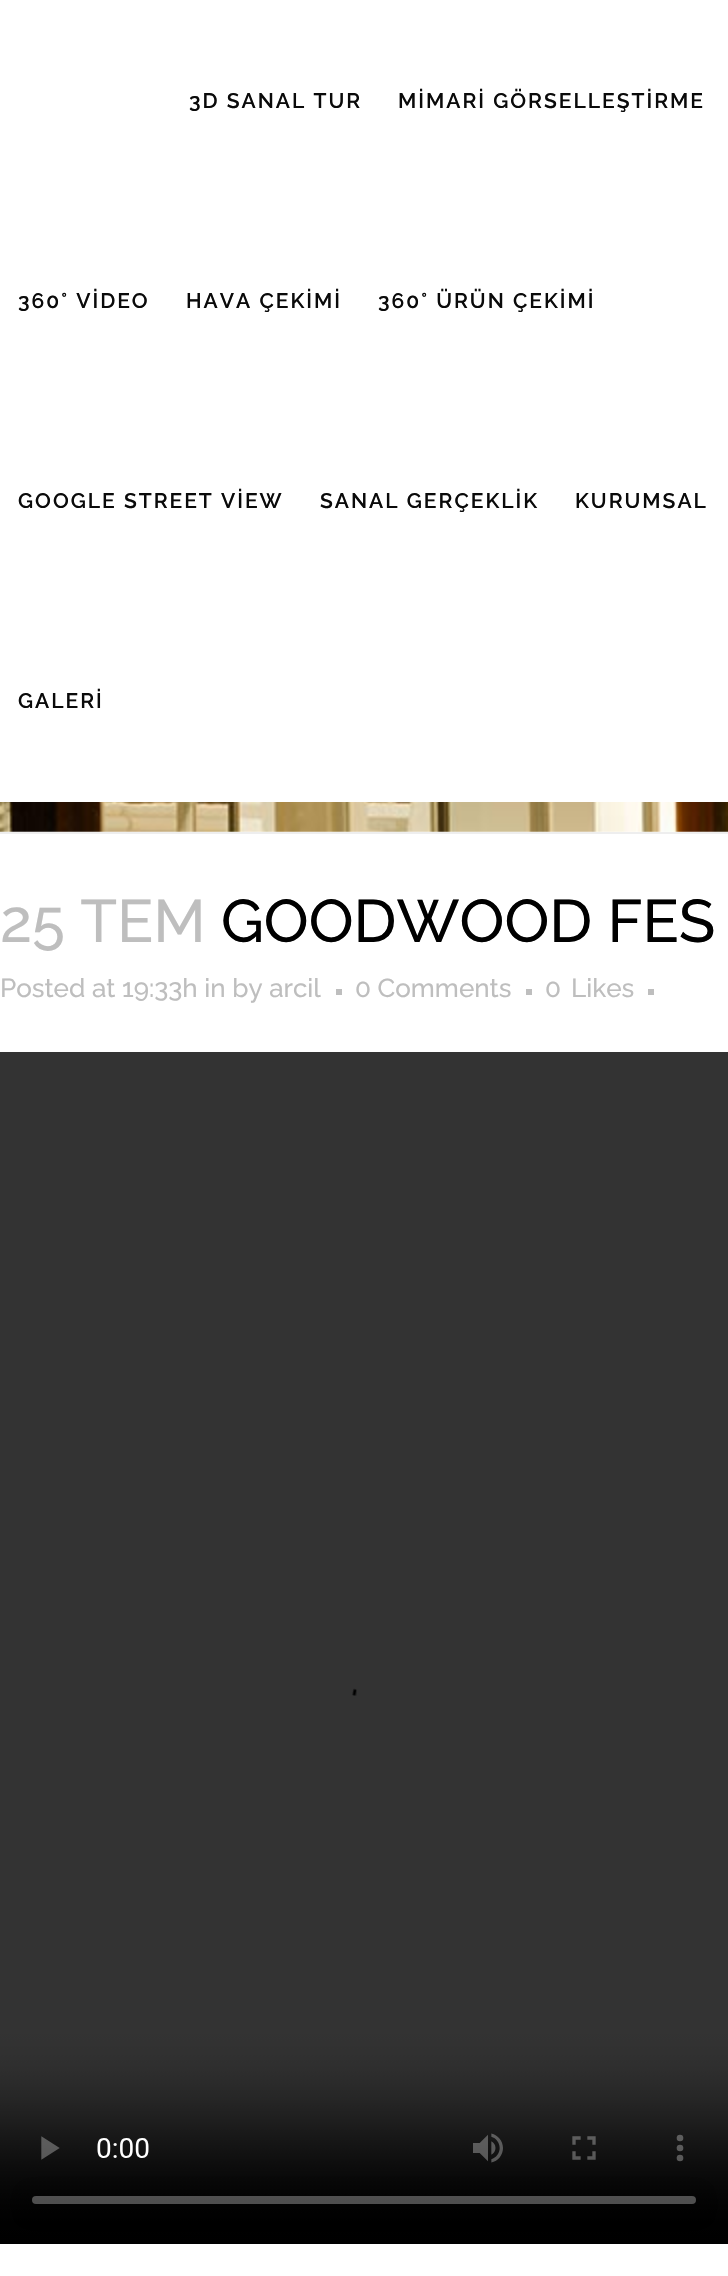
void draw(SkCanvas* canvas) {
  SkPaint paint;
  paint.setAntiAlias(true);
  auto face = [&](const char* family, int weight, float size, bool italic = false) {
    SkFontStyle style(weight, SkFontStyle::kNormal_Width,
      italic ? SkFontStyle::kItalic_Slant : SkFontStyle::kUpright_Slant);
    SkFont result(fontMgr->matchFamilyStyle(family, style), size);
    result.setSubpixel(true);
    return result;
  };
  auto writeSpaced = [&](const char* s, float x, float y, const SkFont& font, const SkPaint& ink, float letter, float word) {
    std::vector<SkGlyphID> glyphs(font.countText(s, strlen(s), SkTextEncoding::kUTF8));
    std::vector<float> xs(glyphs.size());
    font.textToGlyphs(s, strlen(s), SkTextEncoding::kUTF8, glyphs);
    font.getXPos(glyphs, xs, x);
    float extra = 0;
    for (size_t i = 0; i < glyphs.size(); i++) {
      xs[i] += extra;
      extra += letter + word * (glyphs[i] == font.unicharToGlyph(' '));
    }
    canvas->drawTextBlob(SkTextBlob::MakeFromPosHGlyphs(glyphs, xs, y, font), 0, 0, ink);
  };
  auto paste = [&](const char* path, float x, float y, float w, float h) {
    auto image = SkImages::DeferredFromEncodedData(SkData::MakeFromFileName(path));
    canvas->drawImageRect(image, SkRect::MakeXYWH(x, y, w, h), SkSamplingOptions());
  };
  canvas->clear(0xffffffff);
  paste("img/1.png", 0, 802, 728, 30);
  {
    const struct { float x, y, w, h; SkColor color; } items[] = {
      {0, 832, 728, 2, 0xffeeeeee},
      {336, 989, 6, 6, 0xffbebebe},
      {526, 989, 6, 6, 0xffbebebe},
      {648, 989, 6, 6, 0xffbebebe},
    };
    for (auto [x, y, w, h, color] : items) {
      paint.setColor(color);
      canvas->drawRect(SkRect::MakeXYWH(x, y, w, h), paint);
    }
  }
  paste("img/2.png", 0, 1052, 728, 1192);
  auto f0 = face("Raleway", 600, 21);
  paint.setColor(0xff0a0a0a);
  {
    const struct { const char* s; float x, y; } items[] = {
      {"3D SANAL TUR", 189, 108},
      {"MİMARİ GÖRSELLEŞTİRME", 398, 108},
      {"360° VİDEO", 18, 308},
      {"HAVA ÇEKİMİ", 186, 308},
      {"360° ÜRÜN ÇEKİMİ", 378, 308},
      {"GOOGLE STREET VİEW", 18, 508},
      {"SANAL GERÇEKLİK", 320, 508},
      {"KURUMSAL", 575, 508},
      {"GALERİ", 18, 708},
    };
    for (auto [s, x, y] : items) {
      writeSpaced(s, x, y, f0, paint, 2, 0);
    }
  }
  auto f1 = face("Raleway", 500, 60);
  paint.setColor(0xffbebebe);
  canvas->drawString("25 TEM", 0, 942, f1, paint);
  paint.setColor(0xff000000);
  canvas->drawString("GOODWOOD FES", 221, 942, f1, paint);
  auto f2 = face("Raleway", 500, 26);
  paint.setColor(0xffbebebe);
  {
    const struct { const char* s; float x, y; } items[] = {
      {"Posted at 19:33h in by arcil", 0, 997},
      {"0 Comments", 355, 997},
      {"0", 545, 997},
      {"Likes", 571, 997},
    };
    for (auto [s, x, y] : items) {
      canvas->drawString(s, x, y, f2, paint);
    }
  }
}
